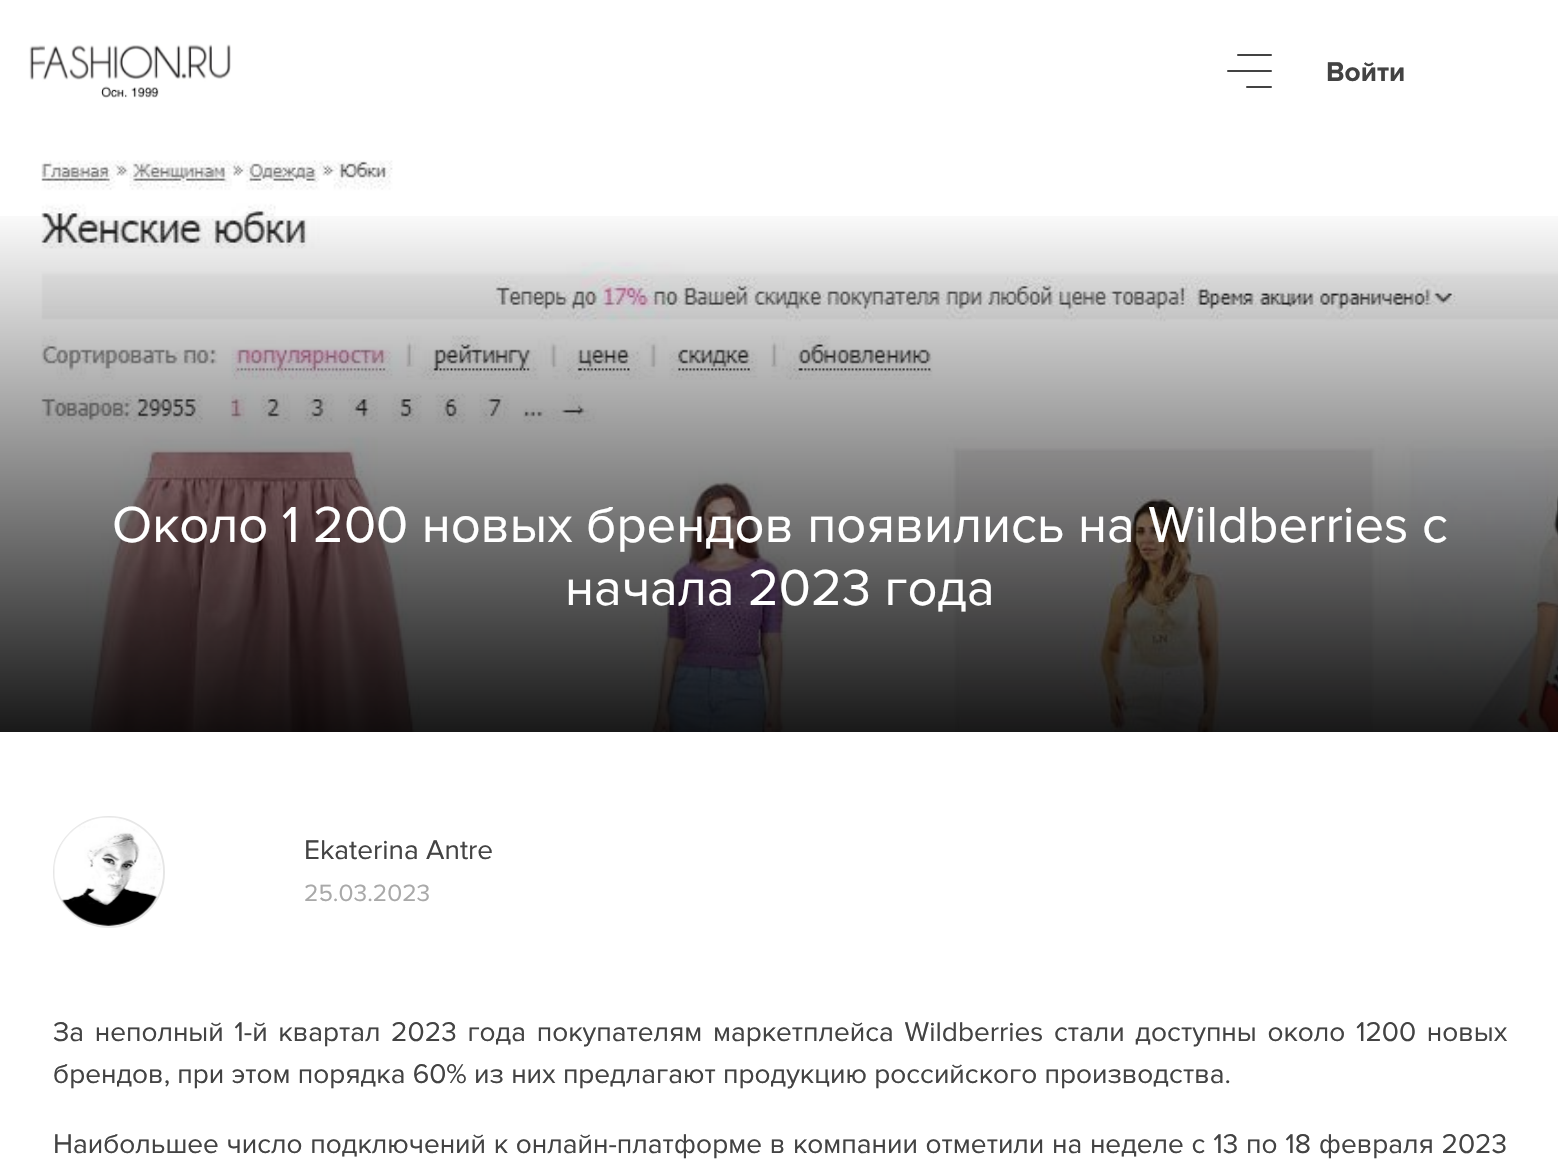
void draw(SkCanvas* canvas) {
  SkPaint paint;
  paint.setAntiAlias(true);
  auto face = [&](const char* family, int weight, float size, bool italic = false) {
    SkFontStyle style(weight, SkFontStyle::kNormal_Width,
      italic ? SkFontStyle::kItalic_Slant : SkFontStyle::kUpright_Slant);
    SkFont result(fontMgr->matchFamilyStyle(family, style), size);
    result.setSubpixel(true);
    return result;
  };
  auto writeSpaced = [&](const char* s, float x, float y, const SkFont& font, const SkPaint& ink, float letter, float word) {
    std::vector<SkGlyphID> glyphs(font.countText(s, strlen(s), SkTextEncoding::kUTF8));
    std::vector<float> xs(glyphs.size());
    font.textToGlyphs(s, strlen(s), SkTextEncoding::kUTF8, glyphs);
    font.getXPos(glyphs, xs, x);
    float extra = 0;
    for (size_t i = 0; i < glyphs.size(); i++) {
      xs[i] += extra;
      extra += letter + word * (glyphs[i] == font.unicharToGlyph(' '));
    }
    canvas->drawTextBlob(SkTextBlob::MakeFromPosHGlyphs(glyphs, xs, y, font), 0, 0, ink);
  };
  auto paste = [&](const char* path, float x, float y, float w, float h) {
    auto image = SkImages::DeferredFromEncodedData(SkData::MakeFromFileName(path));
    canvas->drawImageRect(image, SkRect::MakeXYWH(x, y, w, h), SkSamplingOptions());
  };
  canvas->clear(0xffffffff);
  paste("img/1.png", 29, 44, 202, 54);
  paint.setColor(0xff434343);
  canvas->drawRoundRect(SkRect::MakeXYWH(1237, 54, 35, 2), 1, 1, paint);
  canvas->drawRoundRect(SkRect::MakeXYWH(1227, 70, 45, 2), 1, 1, paint);
  canvas->drawRoundRect(SkRect::MakeXYWH(1246, 86, 26, 2), 1, 1, paint);
  paste("img/2.png", 41, 160, 1517, 572);
  {
    const SkColor colors[] = {0x00000000, 0xe6000000};
    const float stops[] = {0.1f, 1};
    const SkPoint ends[] = {{780, 145}, {780, 732}};
    paint.setShader(SkGradientShader::MakeLinear(ends, colors, stops, 2, SkTileMode::kClamp));
    paint.setAlpha(255);
  }
  canvas->drawRect(SkRect::MakeXYWH(0, 216, 1558, 516), paint);
  paint.setStroke(true);
  paint.setStrokeWidth(2);
  paint.setShader(nullptr);
  paint.setColor(0xffe6e6e6);
  canvas->drawCircle(109, 872, 55, paint);
  paste("img/3.png", 54, 817, 109, 109);
  auto f0 = face("Proxima Nova", 700, 28);
  paint.setStroke(false);
  paint.setColor(0xff434343);
  canvas->drawString("Войти", 1326, 81, f0, paint);
  auto f1 = face("Proxima Nova", 400, 52.5f);
  paint.setColor(0xffffffff);
  canvas->drawString("Около 1 200 новых брендов появились на Wildberries с", 112, 542, f1, paint);
  canvas->drawString("начала 2023 года", 565, 605, f1, paint);
  auto f2 = face("Proxima Nova", 400, 28);
  paint.setColor(0xff434343);
  canvas->drawString("Ekaterina Antre", 304, 859, f2, paint);
  auto f3 = face("Proxima Nova", 400, 24.5f);
  paint.setColor(0xffa9a9a9);
  canvas->drawString("25.03.2023", 304, 901, f3, paint);
  paint.setColor(0xff434343);
  writeSpaced("За неполный 1-й квартал 2023 года покупателям маркетплейса Wildberries стали доступны около 1200 новых", 53, 1041, f2, paint, 0, 3.4f);
  canvas->drawString("брендов, при этом порядка 60% из них предлагают продукцию российского производства.", 53, 1083, f2, paint);
  writeSpaced("Наибольшее число подключений к онлайн-платформе в компании отметили на неделе с 13 по 18 февраля 2023", 53, 1153, f2, paint, 0, 0.5f);
}
